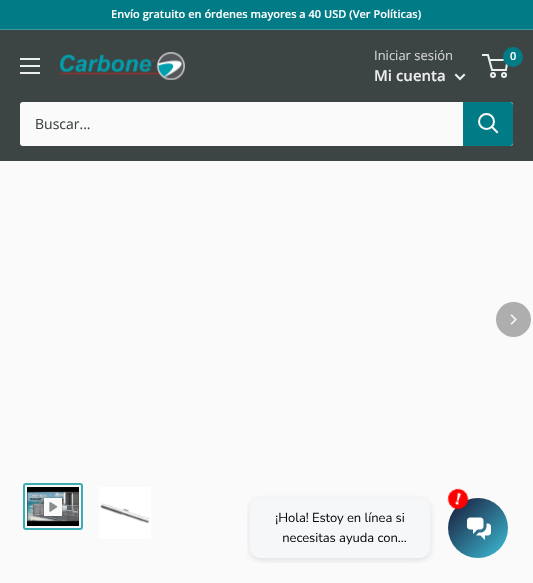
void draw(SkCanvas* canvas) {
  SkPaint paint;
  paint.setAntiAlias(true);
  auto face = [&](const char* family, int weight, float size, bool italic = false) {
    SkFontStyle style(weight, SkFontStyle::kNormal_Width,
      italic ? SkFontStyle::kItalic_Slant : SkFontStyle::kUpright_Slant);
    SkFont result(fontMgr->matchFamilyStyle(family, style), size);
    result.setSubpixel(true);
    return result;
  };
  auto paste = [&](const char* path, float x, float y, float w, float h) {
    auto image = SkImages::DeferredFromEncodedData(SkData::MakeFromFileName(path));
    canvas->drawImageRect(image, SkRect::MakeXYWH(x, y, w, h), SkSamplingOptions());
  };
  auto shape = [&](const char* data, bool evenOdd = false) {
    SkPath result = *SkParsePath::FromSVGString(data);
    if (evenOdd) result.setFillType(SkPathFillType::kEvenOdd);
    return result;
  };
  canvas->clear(0xff017b85);
  paint.setColor(0xff3f959d);
  canvas->drawRect(SkRect::MakeXYWH(0, 29, 533, 1), paint);
  paint.setColor(0xff3d4444);
  canvas->drawRect(SkRect::MakeXYWH(0, 30, 533, 131), paint);
  paste("img/1.png", 20, 58, 20, 16);
  paste("img/2.png", 60, 52, 125, 28);
  paint.setStroke(true);
  paint.setStrokeWidth(2);
  paint.setStrokeCap(SkPaint::kSquare_Cap);
  paint.setColor(0xffeceeee);
  canvas->drawPath(shape("M464 75L460 79L456 75"), paint);
  paint.setStrokeCap(SkPaint::kButt_Cap);
  canvas->drawCircle(493, 75, 2, paint);
  canvas->drawCircle(504, 75, 2, paint);
  canvas->drawPath(shape("M489.5 60H507.5L506 70H492L488 55H482"), paint);
  paint.setStroke(false);
  paint.setColor(0xff017b85);
  canvas->drawCircle(513, 57, 10, paint);
  paint.setColor(0xfffafafa);
  canvas->drawRoundRect(SkRect::MakeXYWH(20, 102, 493, 44), 3, 3, paint);
  paint.setColor(0xff017b85);
  canvas->drawPath(shape("M463 102H510C511.5 102 513 103.5 513 105V143C513 144.5 511.5 146 510 146H463Z"), paint);
  paint.setStroke(true);
  paint.setStrokeCap(SkPaint::kSquare_Cap);
  paint.setColor(0xfffafafa);
  canvas->drawPath(shape("M497 132L492 127"), paint);
  paint.setStrokeCap(SkPaint::kButt_Cap);
  canvas->drawCircle(486.5f, 121.5f, 7.5f, paint);
  paint.setStroke(false);
  canvas->drawRect(SkRect::MakeXYWH(0, 161, 533, 422), paint);
  paint.setColor(0xffaeaeae);
  canvas->drawCircle(513.5f, 319.5f, 17.5f, paint);
  paste("img/3.png", 510, 314, 7, 11);
  paint.setStroke(true);
  paint.setColor(0xff3caeb3);
  canvas->drawRoundRect(SkRect::MakeXYWH(24, 484, 58, 45), 2, 2, paint);
  paste("img/4.png", 27, 487, 52, 39);
  paste("img/5.png", 43, 497, 20, 20);
  paste("img/6.png", 99, 487, 52, 52);
  paste("img/7.png", 247, 488, 261, 75);
  auto f0 = face("Open Sans", 600, 11);
  paint.setStroke(false);
  paint.setColor(0xffffffff);
  canvas->drawString("Envío gratuito en órdenes mayores a 40 USD (Ver Políticas)", 111, 18, f0, paint);
  auto f1 = face("Open Sans", 400, 13);
  paint.setColor(0xffd1d1d4);
  canvas->drawString("Iniciar sesión", 374, 60, f1, paint);
  auto f2 = face("Open Sans", 600, 15);
  paint.setColor(0xffeceeee);
  canvas->drawString("Mi cuenta", 374, 81, f2, paint);
  paint.setColor(0xffffffff);
  canvas->drawString("0", 510, 60, f0, paint);
  auto f3 = face("Open Sans", 400, 14);
  paint.setColor(0xff3d4444);
  canvas->drawString("Buscar...", 35, 129, f3, paint);
}
